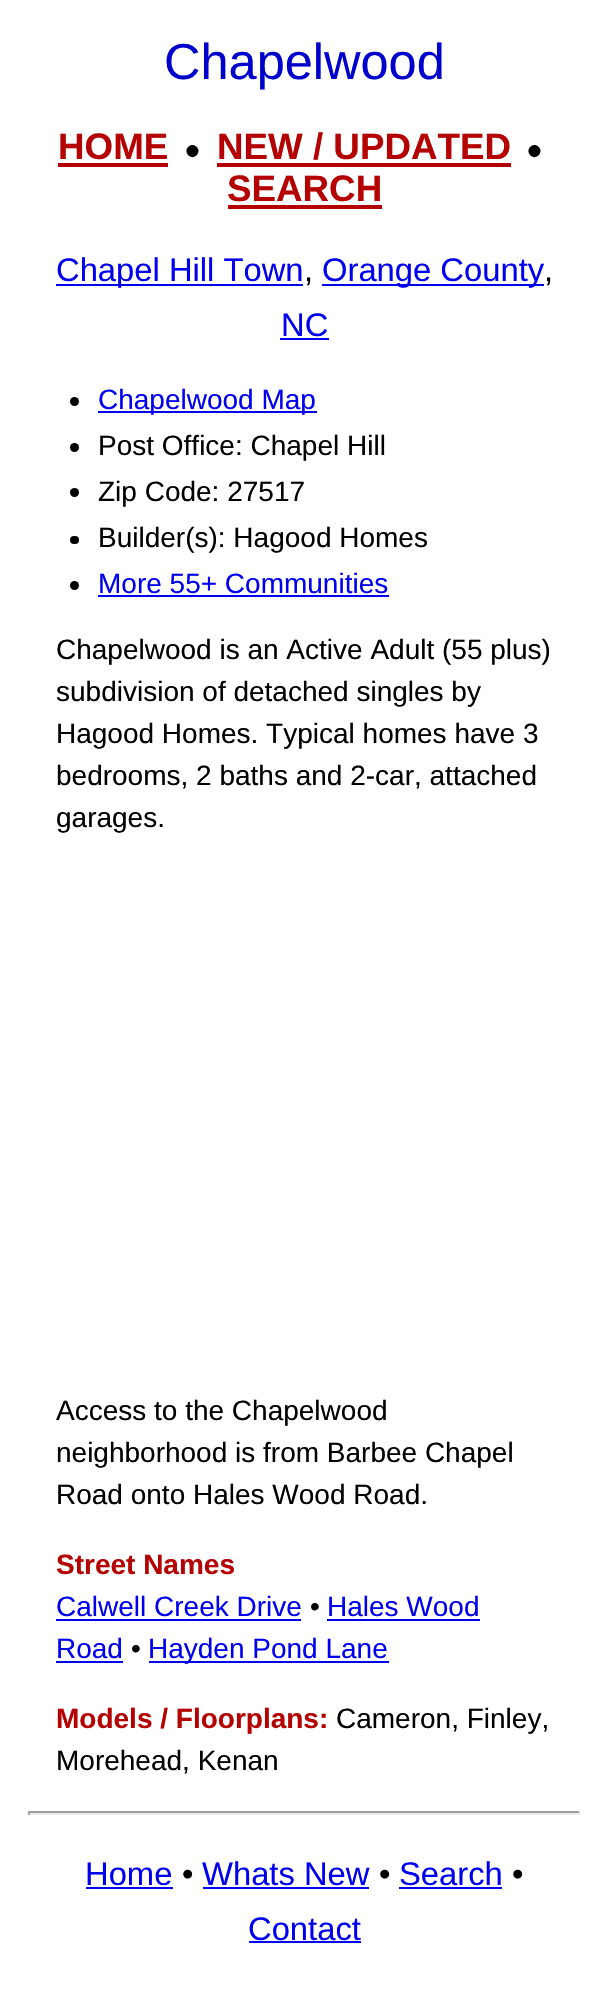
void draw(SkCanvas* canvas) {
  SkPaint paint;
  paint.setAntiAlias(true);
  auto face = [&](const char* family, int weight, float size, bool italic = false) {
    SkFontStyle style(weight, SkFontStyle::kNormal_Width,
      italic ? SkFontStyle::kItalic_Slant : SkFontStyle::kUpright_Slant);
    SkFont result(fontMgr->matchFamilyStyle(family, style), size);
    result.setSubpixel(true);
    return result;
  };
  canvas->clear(0xffffffff);
  {
    const struct { float x, y, w, h; SkColor color; } items[] = {
      {58, 163, 110, 4, 0xffb40101},
      {217, 163, 294, 4, 0xffb40101},
      {228, 205, 154, 4, 0xffb40101},
      {56, 284, 247, 2, 0xff0000ee},
      {322, 284, 222, 2, 0xff0000ee},
      {280, 338, 49, 2, 0xff0000ee},
    };
    for (auto [x, y, w, h, color] : items) {
      paint.setColor(color);
      canvas->drawRect(SkRect::MakeXYWH(x, y, w, h), paint);
    }
  }
  paint.setColor(0xff000000);
  canvas->drawCircle(74.5f, 401.5f, 4.5f, paint);
  paint.setColor(0xff0000ee);
  canvas->drawRect(SkRect::MakeXYWH(98, 411, 219, 2), paint);
  paint.setColor(0xff000000);
  canvas->drawCircle(74.5f, 447.5f, 4.5f, paint);
  canvas->drawCircle(74.5f, 492.5f, 4.5f, paint);
  canvas->drawRoundRect(SkRect::MakeXYWH(70, 536, 9, 8), 4, 4, paint);
  canvas->drawCircle(74.5f, 585.5f, 4.5f, paint);
  {
    const struct { float x, y, w, h; SkColor color; } items[] = {
      {98, 595, 291, 2, 0xff0000ee},
      {56, 1619, 245, 2, 0xff0000ee},
      {327, 1619, 153, 2, 0xff0000ee},
      {56, 1661, 67, 2, 0xff0000ee},
      {149, 1661, 240, 2, 0xff0000ee},
      {28, 1811, 553, 2, 0xff9f9f9f},
      {579, 1811, 2, 4, 0xffeeeeee},
      {28, 1813, 553, 2, 0xffeeeeee},
      {28, 1811, 2, 4, 0xff9f9f9f},
      {86, 1887, 87, 2, 0xff0000ee},
      {203, 1887, 166, 2, 0xff0000ee},
      {399, 1887, 103, 2, 0xff0000ee},
      {249, 1941, 112, 2, 0xff0000ee},
    };
    for (auto [x, y, w, h, color] : items) {
      paint.setColor(color);
      canvas->drawRect(SkRect::MakeXYWH(x, y, w, h), paint);
    }
  }
  auto f0 = face("Liberation Sans", 400, 50.5f);
  paint.setColor(0xff0000cc);
  canvas->drawString("Chapelwood", 164, 79, f0, paint);
  auto f1 = face("Liberation Sans", 700, 36.75f);
  paint.setColor(0xffb40101);
  canvas->drawString("HOME", 58, 159, f1, paint);
  auto f2 = face("Liberation Sans", 400, 28);
  paint.setColor(0xff000000);
  canvas->drawString("●", 184, 159, f2, paint);
  paint.setColor(0xffb40101);
  canvas->drawString("NEW / UPDATED", 217, 159, f1, paint);
  paint.setColor(0xff000000);
  canvas->drawString("●", 526, 159, f2, paint);
  paint.setColor(0xffb40101);
  canvas->drawString("SEARCH", 227, 201, f1, paint);
  auto f3 = face("Liberation Sans", 400, 32.75f);
  paint.setColor(0xff0000ee);
  canvas->drawString("Chapel Hill Town", 56, 281, f3, paint);
  paint.setColor(0xff000000);
  canvas->drawString(",", 304, 281, f3, paint);
  paint.setColor(0xff0000ee);
  canvas->drawString("Orange County", 322, 281, f3, paint);
  paint.setColor(0xff000000);
  canvas->drawString(",", 544, 281, f3, paint);
  paint.setColor(0xff0000ee);
  canvas->drawString("NC", 281, 336, f3, paint);
  canvas->drawString("Chapelwood Map", 98, 409, f2, paint);
  paint.setColor(0xff000000);
  {
    const struct { const char* s; float x, y; } items[] = {
      {"Post Office: Chapel Hill", 98, 455},
      {"Zip Code: 27517", 98, 501},
      {"Builder(s): Hagood Homes", 98, 547},
    };
    for (auto [s, x, y] : items) {
      canvas->drawString(s, x, y, f2, paint);
    }
  }
  paint.setColor(0xff0000ee);
  canvas->drawString("More 55+ Communities", 98, 593, f2, paint);
  paint.setColor(0xff000000);
  {
    const struct { const char* s; float x, y; } items[] = {
      {"Chapelwood is an Active Adult (55 plus)", 56, 659},
      {"subdivision of detached singles by", 56, 701},
      {"Hagood Homes. Typical homes have 3", 56, 743},
      {"bedrooms, 2 baths and 2-car, attached", 56, 785},
      {"garages.", 56, 827},
      {"Access to the Chapelwood", 56, 1420},
      {"neighborhood is from Barbee Chapel", 56, 1462},
      {"Road onto Hales Wood Road.", 56, 1504},
    };
    for (auto [s, x, y] : items) {
      canvas->drawString(s, x, y, f2, paint);
    }
  }
  auto f4 = face("Liberation Sans", 700, 28);
  paint.setColor(0xffb40101);
  canvas->drawString("Street Names", 56, 1574, f4, paint);
  paint.setColor(0xff0000ee);
  canvas->drawString("Calwell Creek Drive", 56, 1616, f2, paint);
  paint.setColor(0xff000000);
  canvas->drawString("•", 310, 1616, f2, paint);
  paint.setColor(0xff0000ee);
  canvas->drawString("Hales Wood", 327, 1616, f2, paint);
  canvas->drawString("Road", 56, 1658, f2, paint);
  paint.setColor(0xff000000);
  canvas->drawString("•", 131, 1658, f2, paint);
  paint.setColor(0xff0000ee);
  canvas->drawString("Hayden Pond Lane", 148, 1658, f2, paint);
  paint.setColor(0xffb40101);
  canvas->drawString("Models / Floorplans:", 56, 1728, f4, paint);
  paint.setColor(0xff000000);
  canvas->drawString("Cameron, Finley,", 336, 1728, f2, paint);
  canvas->drawString("Morehead, Kenan", 56, 1770, f2, paint);
  paint.setColor(0xff0000ee);
  canvas->drawString("Home", 85, 1885, f3, paint);
  paint.setColor(0xff000000);
  canvas->drawString("•", 182, 1885, f3, paint);
  paint.setColor(0xff0000ee);
  canvas->drawString("Whats New", 202, 1885, f3, paint);
  paint.setColor(0xff000000);
  canvas->drawString("•", 379, 1885, f3, paint);
  paint.setColor(0xff0000ee);
  canvas->drawString("Search", 399, 1885, f3, paint);
  paint.setColor(0xff000000);
  canvas->drawString("•", 512, 1885, f3, paint);
  paint.setColor(0xff0000ee);
  canvas->drawString("Contact", 248, 1940, f3, paint);
}
